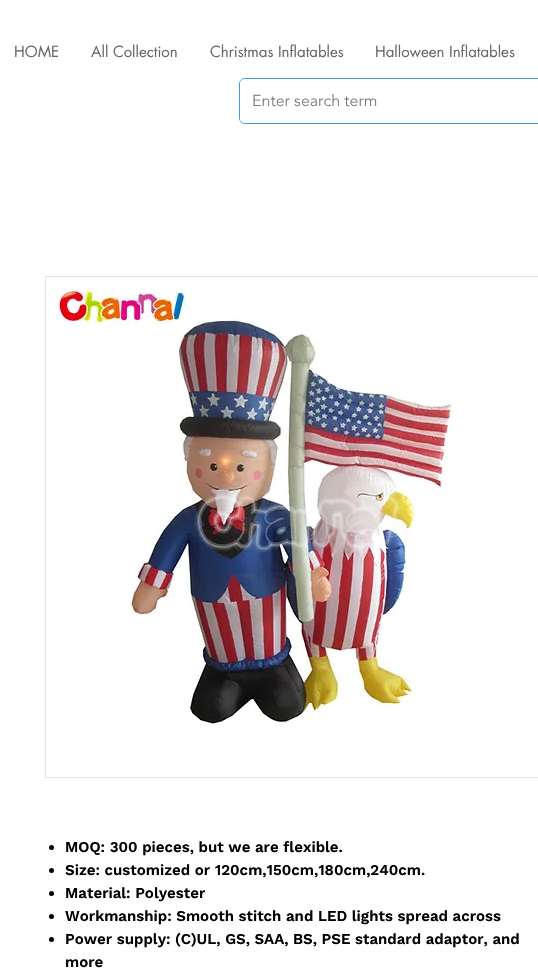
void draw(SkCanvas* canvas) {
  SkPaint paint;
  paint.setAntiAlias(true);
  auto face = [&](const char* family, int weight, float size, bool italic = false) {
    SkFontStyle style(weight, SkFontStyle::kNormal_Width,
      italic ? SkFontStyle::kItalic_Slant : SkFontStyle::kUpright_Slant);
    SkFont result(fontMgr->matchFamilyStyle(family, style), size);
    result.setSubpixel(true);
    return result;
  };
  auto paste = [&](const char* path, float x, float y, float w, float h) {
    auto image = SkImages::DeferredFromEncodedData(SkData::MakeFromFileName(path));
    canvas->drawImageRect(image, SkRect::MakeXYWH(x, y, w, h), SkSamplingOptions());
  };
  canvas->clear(0xffffffff);
  paint.setStroke(true);
  paint.setStrokeWidth(1);
  paint.setColor(0xff3d9be9);
  canvas->drawRoundRect(SkRect::MakeXYWH(239.5f, 78.5f, 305, 45), 5.5f, 5.5f, paint);
  paint.setStroke(false);
  paint.setColor(0xffffffff);
  canvas->drawRoundRect(SkRect::MakeXYWH(240, 79, 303, 44), 5, 5, paint);
  paint.setStroke(true);
  paint.setColor(0xffeedfdb);
  canvas->drawRect(SkRect::MakeXYWH(45.5f, 276.5f, 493, 501), paint);
  paste("img/1.png", 54, 285, 400, 440);
  paint.setStroke(false);
  paint.setColor(0xff000000);
  canvas->drawCircle(51.5f, 847.5f, 2.5f, paint);
  canvas->drawCircle(51.5f, 870.5f, 2.5f, paint);
  canvas->drawCircle(51.5f, 893.5f, 2.5f, paint);
  canvas->drawCircle(51.5f, 916.5f, 2.5f, paint);
  canvas->drawCircle(51.5f, 939.5f, 2.5f, paint);
  auto f0 = face("futura", 400, 15);
  paint.setColor(0xff696969);
  {
    const struct { const char* s; float x, y; } items[] = {
      {"HOME", 14, 57},
      {"All Collection", 91, 57},
      {"Christmas Inflatables", 210, 57},
      {"Halloween Inflatables", 375, 57},
    };
    for (auto [s, x, y] : items) {
      canvas->drawString(s, x, y, f0, paint);
    }
  }
  auto f1 = face("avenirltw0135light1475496", 300, 16);
  paint.setColor(0xff787878);
  canvas->drawString("Enter search term", 252, 106, f1, paint);
  auto f2 = face("Work Sans", 600, 15);
  paint.setColor(0xff000000);
  {
    const struct { const char* s; float x, y; } items[] = {
      {"MOQ: 300 pieces, but we are flexible.", 65, 852},
      {"Size: customized or 120cm,150cm,180cm,240cm.", 65, 875},
      {"Material: Polyester", 65, 898},
      {"Workmanship: Smooth stitch and LED lights spread across", 65, 921},
      {"Power supply: (C)UL, GS, SAA, BS, PSE standard adaptor, and", 65, 944},
      {"more", 65, 967},
    };
    for (auto [s, x, y] : items) {
      canvas->drawString(s, x, y, f2, paint);
    }
  }
}
